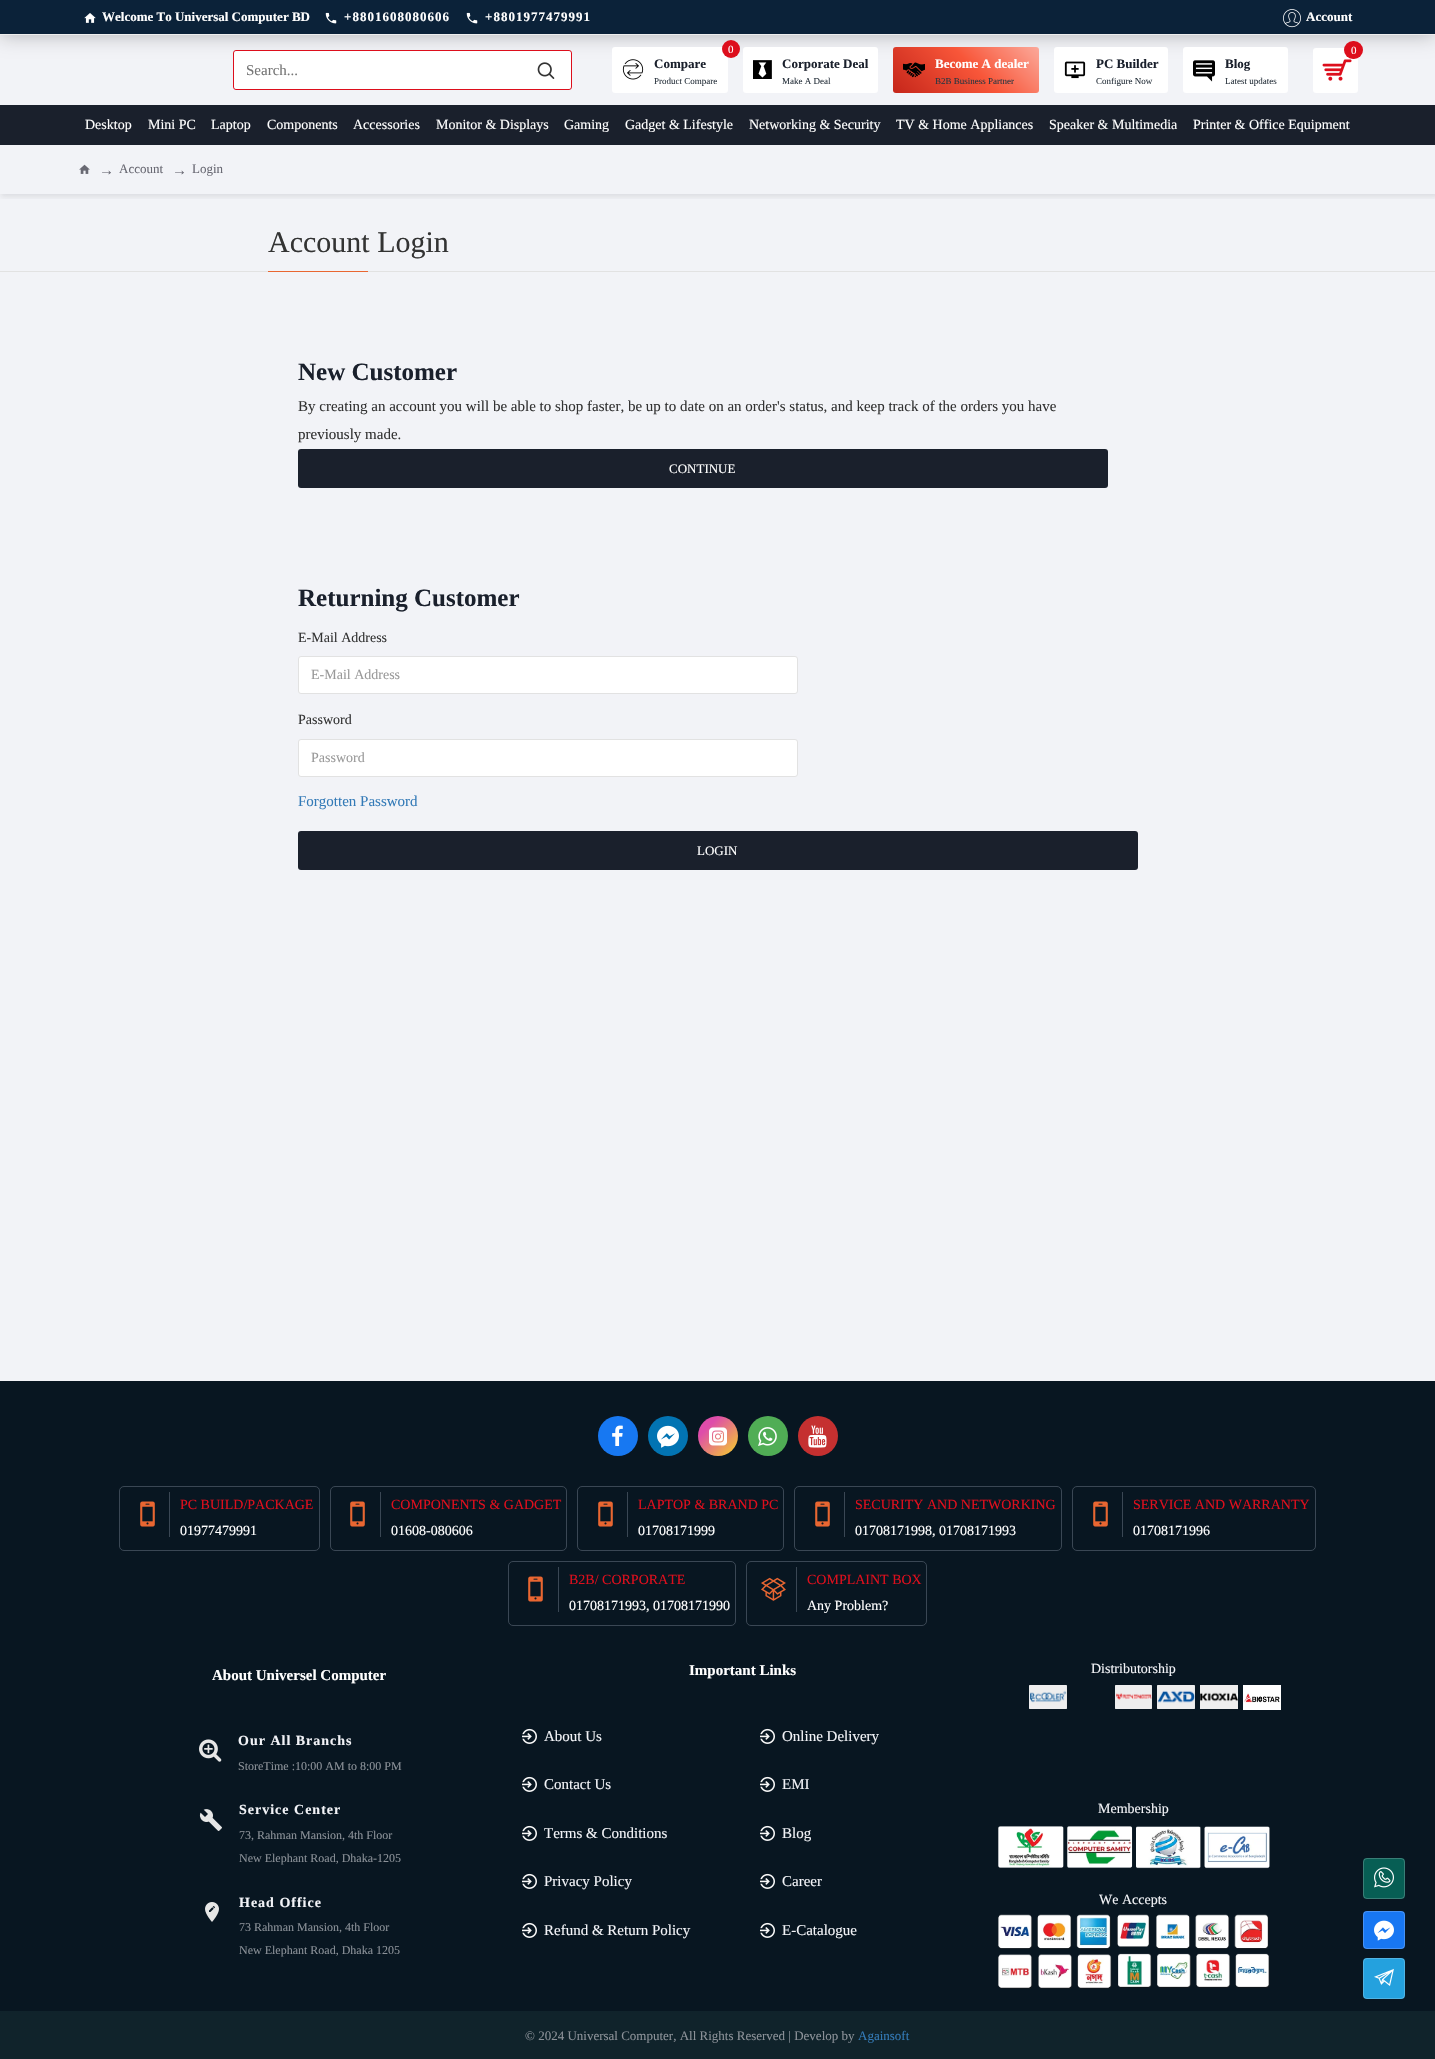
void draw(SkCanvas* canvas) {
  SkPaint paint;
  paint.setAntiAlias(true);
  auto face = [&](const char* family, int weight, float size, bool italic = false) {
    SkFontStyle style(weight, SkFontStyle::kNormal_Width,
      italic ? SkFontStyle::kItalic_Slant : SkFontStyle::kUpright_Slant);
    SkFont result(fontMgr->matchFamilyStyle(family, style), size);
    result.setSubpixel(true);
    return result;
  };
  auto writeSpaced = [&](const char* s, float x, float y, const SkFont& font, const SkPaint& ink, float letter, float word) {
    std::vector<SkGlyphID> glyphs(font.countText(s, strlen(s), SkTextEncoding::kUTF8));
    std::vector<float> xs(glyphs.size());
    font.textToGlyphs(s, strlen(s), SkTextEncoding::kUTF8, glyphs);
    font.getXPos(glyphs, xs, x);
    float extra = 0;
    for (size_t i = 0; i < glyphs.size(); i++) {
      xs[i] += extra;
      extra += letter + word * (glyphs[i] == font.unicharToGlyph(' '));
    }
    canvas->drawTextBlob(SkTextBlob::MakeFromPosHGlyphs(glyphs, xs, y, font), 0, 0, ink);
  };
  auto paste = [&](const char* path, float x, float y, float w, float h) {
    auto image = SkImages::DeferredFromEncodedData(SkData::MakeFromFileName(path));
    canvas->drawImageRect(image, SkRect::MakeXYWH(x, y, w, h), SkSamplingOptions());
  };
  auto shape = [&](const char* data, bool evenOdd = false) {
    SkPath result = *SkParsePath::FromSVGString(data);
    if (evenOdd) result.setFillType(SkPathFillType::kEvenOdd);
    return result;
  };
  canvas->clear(0xfff2f3f7);
  paint.setColor(0x47000000);
  paint.setMaskFilter(SkMaskFilter::MakeBlur(kNormal_SkBlurStyle, 10));
  canvas->drawRect(SkRect::MakeXYWH(0, 0, 1435, 35), paint);
  paint.setMaskFilter(nullptr);
  paint.setColor(0xff0b2239);
  canvas->drawRect(SkRect::MakeXYWH(0, 0, 1435, 34), paint);
  paint.setColor(0xffeeeeee);
  canvas->drawRect(SkRect::MakeXYWH(0, 34, 1435, 1), paint);
  paste("img/1.png", 84, 13, 12, 10);
  paste("img/2.png", 325, 12, 12, 12);
  paste("img/2.png", 466, 12, 12, 12);
  paste("img/3.png", 1283, 9, 18, 19);
  paint.setStroke(true);
  paint.setStrokeWidth(1);
  paint.setColor(0xffdd0e1c);
  canvas->drawRoundRect(SkRect::MakeXYWH(233.5f, 50.5f, 338, 39), 2.5f, 2.5f, paint);
  paint.setStroke(false);
  paint.setColor(0xffffffff);
  canvas->drawPath(shape("M237 51H521V89H237C235.5 89 234 87.5 234 86V54C234 52.5 235.5 51 237 51Z"), paint);
  canvas->drawPath(shape("M521 51H568C569.5 51 571 52.5 571 54V86C571 87.5 569.5 89 568 89H521Z"), paint);
  paste("img/4.png", 537, 62, 18, 17);
  canvas->drawRoundRect(SkRect::MakeXYWH(612, 47, 116, 46), 3, 3, paint);
  paint.setColor(0xffdd0e1c);
  canvas->drawCircle(731, 49, 9, paint);
  paste("img/5.png", 622, 59, 22, 21);
  paint.setColor(0xffffffff);
  canvas->drawRoundRect(SkRect::MakeXYWH(743, 47, 135, 46), 3, 3, paint);
  paste("img/6.png", 753, 60, 19, 19);
  {
    const SkColor colors[] = {0xffa40606, 0xfff85639, 0xffffffff, 0xfff53844, 0xff00237e};
    const float stops[] = {0, 0.25f, 0.5f, 0.75f, 1};
    const SkPoint ends[] = {{1010, 279}, {1360, -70}};
    paint.setShader(SkGradientShader::MakeLinear(ends, colors, stops, 5, SkTileMode::kClamp));
    paint.setAlpha(255);
  }
  canvas->drawRoundRect(SkRect::MakeXYWH(893, 47, 146, 46), 3, 3, paint);
  paste("img/7.png", 903, 62, 22, 16);
  paint.setShader(nullptr);
  paint.setColor(0xffffffff);
  canvas->drawRoundRect(SkRect::MakeXYWH(1054, 47, 114, 46), 3, 3, paint);
  paste("img/8.png", 1064, 61, 22, 18);
  canvas->drawRoundRect(SkRect::MakeXYWH(1183, 47, 105, 46), 3, 3, paint);
  paste("img/9.png", 1193, 60, 22, 22);
  canvas->drawRoundRect(SkRect::MakeXYWH(1313, 48, 45, 45), 3, 3, paint);
  paint.setColor(0xffdd0e1c);
  canvas->drawRoundRect(SkRect::MakeXYWH(1344, 41, 19, 18), 9, 9, paint);
  paste("img/10.png", 1322, 59, 30, 22);
  canvas->save();
  canvas->clipRect(SkRect::MakeXYWH(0, 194, 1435, 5));
  paint.setColor(0x1a1a202c);
  paint.setMaskFilter(SkMaskFilter::MakeBlur(kNormal_SkBlurStyle, 2.5f));
  canvas->drawRect(SkRect::MakeXYWH(1, 146, 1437, 51), paint);
  paint.setMaskFilter(nullptr);
  canvas->restore();
  paint.setColor(0xff1a202c);
  canvas->drawRect(SkRect::MakeXYWH(0, 105, 1435, 40), paint);
  paste("img/11.png", 79, 164, 11, 10);
  paint.setColor(0xffe2e2e2);
  canvas->drawRect(SkRect::MakeXYWH(0, 271, 1435, 1), paint);
  paint.setColor(0xffe96631);
  canvas->drawRect(SkRect::MakeXYWH(268, 271, 100, 1), paint);
  paint.setColor(0xff1a202c);
  canvas->drawRoundRect(SkRect::MakeXYWH(298, 449, 810, 39), 3, 3, paint);
  paint.setColor(0xffffffff);
  canvas->drawRoundRect(SkRect::MakeXYWH(298.5f, 656.5f, 499, 37), 2.5f, 2.5f, paint);
  paint.setStroke(true);
  paint.setColor(0xffe2e2e2);
  canvas->drawRoundRect(SkRect::MakeXYWH(298.5f, 656.5f, 499, 37), 2.5f, 2.5f, paint);
  paint.setStroke(false);
  paint.setColor(0xffffffff);
  canvas->drawRoundRect(SkRect::MakeXYWH(298.5f, 739.5f, 499, 37), 2.5f, 2.5f, paint);
  paint.setStroke(true);
  paint.setColor(0xffe2e2e2);
  canvas->drawRoundRect(SkRect::MakeXYWH(298.5f, 739.5f, 499, 37), 2.5f, 2.5f, paint);
  paint.setStroke(false);
  paint.setColor(0xff1a202c);
  canvas->drawRoundRect(SkRect::MakeXYWH(298, 831, 840, 39), 3, 3, paint);
  paint.setColor(0xff081621);
  canvas->drawRect(SkRect::MakeXYWH(0, 1381, 1435, 630), paint);
  paint.setColor(0xff1778f2);
  canvas->drawCircle(618, 1436, 20, paint);
  paste("img/12.png", 612, 1425, 11, 21);
  paint.setColor(0xff0274b3);
  canvas->drawCircle(668, 1436, 20, paint);
  paste("img/13.png", 657, 1425, 22, 23);
  {
    const SkColor colors[] = {0xfff6d327, 0xffde4daa};
    const float stops[] = {0, 0.74f};
    const SkPoint ends[] = {{738, 1456}, {698, 1416}};
    paint.setShader(SkGradientShader::MakeLinear(ends, colors, stops, 2, SkTileMode::kClamp));
    paint.setAlpha(255);
  }
  canvas->drawCircle(718, 1436, 20, paint);
  paste("img/14.png", 709, 1427, 18, 19);
  paint.setShader(nullptr);
  paint.setColor(0xff50ad55);
  canvas->drawCircle(768, 1436, 20, paint);
  paste("img/15.png", 758, 1427, 19, 19);
  paint.setColor(0xffc53030);
  canvas->drawCircle(818, 1436, 20, paint);
  paste("img/16.png", 808, 1425, 19, 23);
  paint.setStroke(true);
  paint.setColor(0xff3a4754);
  canvas->drawRoundRect(SkRect::MakeXYWH(119.5f, 1486.5f, 200, 64), 4.5f, 4.5f, paint);
  paint.setStroke(false);
  canvas->drawRect(SkRect::MakeXYWH(169, 1492, 1, 45), paint);
  paste("img/17.png", 140, 1501, 15, 26);
  paint.setStroke(true);
  canvas->drawRoundRect(SkRect::MakeXYWH(330.5f, 1486.5f, 236, 64), 4.5f, 4.5f, paint);
  paint.setStroke(false);
  canvas->drawRect(SkRect::MakeXYWH(380, 1492, 1, 45), paint);
  paste("img/17.png", 350, 1501, 15, 26);
  paint.setStroke(true);
  canvas->drawRoundRect(SkRect::MakeXYWH(577.5f, 1486.5f, 206, 64), 4.5f, 4.5f, paint);
  paint.setStroke(false);
  canvas->drawRect(SkRect::MakeXYWH(627, 1492, 1, 45), paint);
  paste("img/17.png", 598, 1501, 15, 26);
  paint.setStroke(true);
  canvas->drawRoundRect(SkRect::MakeXYWH(794.5f, 1486.5f, 267, 64), 4.5f, 4.5f, paint);
  paint.setStroke(false);
  canvas->drawRect(SkRect::MakeXYWH(844, 1492, 1, 45), paint);
  paste("img/17.png", 815, 1501, 15, 26);
  paint.setStroke(true);
  canvas->drawRoundRect(SkRect::MakeXYWH(1072.5f, 1486.5f, 243, 64), 4.5f, 4.5f, paint);
  paint.setStroke(false);
  canvas->drawRect(SkRect::MakeXYWH(1122, 1492, 1, 45), paint);
  paste("img/17.png", 1093, 1501, 15, 26);
  paint.setStroke(true);
  canvas->drawRoundRect(SkRect::MakeXYWH(508.5f, 1561.5f, 227, 64), 4.5f, 4.5f, paint);
  paint.setStroke(false);
  canvas->drawRect(SkRect::MakeXYWH(558, 1567, 1, 45), paint);
  paste("img/17.png", 528, 1576, 15, 26);
  paint.setStroke(true);
  canvas->drawRoundRect(SkRect::MakeXYWH(746.5f, 1561.5f, 180, 64), 4.5f, 4.5f, paint);
  paint.setStroke(false);
  canvas->drawRect(SkRect::MakeXYWH(796, 1567, 1, 45), paint);
  paste("img/18.png", 761, 1577, 25, 24);
  paste("img/19.png", 199, 1739, 23, 23);
  paste("img/20.png", 199, 1809, 23, 22);
  paste("img/21.png", 205, 1902, 14, 20);
  paste("img/22.png", 522, 1728, 15, 16);
  paste("img/22.png", 760, 1728, 15, 16);
  paste("img/22.png", 522, 1776, 15, 16);
  paste("img/22.png", 760, 1776, 15, 16);
  paste("img/22.png", 522, 1825, 15, 16);
  paste("img/22.png", 760, 1825, 15, 16);
  paste("img/22.png", 522, 1873, 15, 16);
  paste("img/22.png", 760, 1873, 15, 16);
  paste("img/22.png", 522, 1922, 15, 16);
  paste("img/22.png", 760, 1922, 15, 16);
  paste("img/23.png", 1029, 1685, 38, 24);
  paste("img/24.png", 1115, 1685, 37, 24);
  paste("img/25.png", 1157, 1685, 38, 24);
  paste("img/26.png", 1200, 1685, 38, 24);
  paste("img/27.png", 1243, 1685, 38, 25);
  paste("img/28.png", 998, 1826, 272, 43);
  paste("img/29.png", 998, 1914, 272, 75);
  paint.setColor(0xff10232b);
  canvas->drawRect(SkRect::MakeXYWH(0, 2011, 1435, 48), paint);
  paint.setColor(0xff075e54);
  canvas->drawRoundRect(SkRect::MakeXYWH(1363, 1858, 42, 41), 4, 4, paint);
  paint.setStroke(true);
  paint.setColor(0x33ffffff);
  canvas->drawRoundRect(SkRect::MakeXYWH(1363.5f, 1858.5f, 41, 40), 3.5f, 3.5f, paint);
  paste("img/30.png", 1374, 1867, 20, 21);
  paint.setStroke(false);
  paint.setColor(0xff1877f2);
  canvas->drawRoundRect(SkRect::MakeXYWH(1363, 1911, 42, 38), 4, 4, paint);
  paint.setStroke(true);
  paint.setColor(0x33ffffff);
  canvas->drawRoundRect(SkRect::MakeXYWH(1363.5f, 1911.5f, 41, 37), 3.5f, 3.5f, paint);
  paste("img/31.png", 1374, 1920, 20, 21);
  paint.setStroke(false);
  paint.setColor(0xff24a1de);
  canvas->drawRoundRect(SkRect::MakeXYWH(1363, 1958, 42, 41), 4, 4, paint);
  paint.setStroke(true);
  paint.setColor(0x33ffffff);
  canvas->drawRoundRect(SkRect::MakeXYWH(1363.5f, 1958.5f, 41, 40), 3.5f, 3.5f, paint);
  paste("img/32.png", 1374, 1968, 20, 18);
  auto f0 = face("Liberation Serif", 700, 13);
  paint.setStroke(false);
  paint.setColor(0xffffffff);
  canvas->drawString("Welcome To Universal Computer BD", 102, 21, f0, paint);
  writeSpaced("+8801608080606", 344, 21, f0, paint, 1, 0);
  writeSpaced("+8801977479991", 485, 21, f0, paint, 1, 0);
  canvas->drawString("Account", 1306, 21, f0, paint);
  auto f1 = face("Liberation Serif", 400, 15);
  paint.setColor(0xff757575);
  canvas->drawString("Search...", 246, 75, f1, paint);
  auto f2 = face("Liberation Serif", 400, 11);
  paint.setColor(0xffffffff);
  canvas->drawString("0", 728, 53, f2, paint);
  paint.setColor(0xff1a202c);
  canvas->drawString("Compare", 654, 68, f0, paint);
  auto f3 = face("Liberation Serif", 400, 9);
  paint.setColor(0xff2c3640);
  canvas->drawString("Product Compare", 654, 84, f3, paint);
  paint.setColor(0xff1a202c);
  canvas->drawString("Corporate Deal", 782, 68, f0, paint);
  paint.setColor(0xff2c3640);
  canvas->drawString("Make A Deal", 782, 84, f3, paint);
  paint.setColor(0xffffffff);
  canvas->drawString("Become A dealer", 935, 68, f0, paint);
  paint.setColor(0xff2c3640);
  canvas->drawString("B2B Business Partner", 935, 84, f3, paint);
  paint.setColor(0xff1a202c);
  canvas->drawString("PC Builder", 1096, 68, f0, paint);
  paint.setColor(0xff2c3640);
  canvas->drawString("Configure Now", 1096, 84, f3, paint);
  paint.setColor(0xff1a202c);
  canvas->drawString("Blog", 1225, 68, f0, paint);
  paint.setColor(0xff2c3640);
  canvas->drawString("Latest updates", 1225, 84, f3, paint);
  paint.setColor(0xffffffff);
  canvas->drawString("0", 1351, 54, f2, paint);
  auto f4 = face("Liberation Serif", 400, 14);
  {
    const struct { const char* s; float x, y; } items[] = {
      {"Desktop", 85, 129},
      {"Mini PC", 148, 129},
      {"Laptop", 211, 129},
      {"Components", 267, 129},
      {"Accessories", 353, 129},
      {"Monitor & Displays", 436, 129},
      {"Gaming", 564, 129},
      {"Gadget & Lifestyle", 625, 129},
      {"Networking & Security", 749, 129},
      {"TV & Home Appliances", 896, 129},
      {"Speaker & Multimedia", 1049, 129},
      {"Printer & Office Equipment", 1193, 129},
    };
    for (auto [s, x, y] : items) {
      canvas->drawString(s, x, y, f4, paint);
    }
  }
  paint.setColor(0xff696973);
  canvas->drawString("→", 99, 175, f1, paint);
  auto f5 = face("Liberation Serif", 400, 13);
  canvas->drawString("Account", 119, 173, f5, paint);
  canvas->drawString("→", 172, 175, f1, paint);
  canvas->drawString("Login", 192, 173, f5, paint);
  auto f6 = face("Liberation Serif", 400, 30);
  paint.setColor(0xff333333);
  canvas->drawString("Account Login", 268, 252, f6, paint);
  auto f7 = face("Liberation Serif", 700, 25);
  paint.setColor(0xff1a202c);
  canvas->drawString("New Customer", 298, 380, f7, paint);
  paint.setColor(0xff333333);
  canvas->drawString("By creating an account you will be able to shop faster, be up to date on an order's status, and keep track of the orders you have", 298, 411, f1, paint);
  canvas->drawString("previously made.", 298, 439, f1, paint);
  paint.setColor(0xffffffff);
  canvas->drawString("CONTINUE", 669, 473, f5, paint);
  paint.setColor(0xff1a202c);
  canvas->drawString("Returning Customer", 298, 606, f7, paint);
  paint.setColor(0xff333333);
  canvas->drawString("E-Mail Address", 298, 642, f4, paint);
  paint.setColor(0xff999999);
  canvas->drawString("E-Mail Address", 311, 679, f4, paint);
  paint.setColor(0xff333333);
  canvas->drawString("Password", 298, 724, f4, paint);
  paint.setColor(0xff999999);
  canvas->drawString("Password", 311, 762, f4, paint);
  paint.setColor(0xff337ab7);
  canvas->drawString("Forgotten Password", 298, 806, f1, paint);
  paint.setColor(0xffffffff);
  canvas->drawString("LOGIN", 697, 855, f5, paint);
  paint.setColor(0xffdd0e1c);
  canvas->drawString("PC BUILD/PACKAGE", 180, 1509, f4, paint);
  paint.setColor(0xffffffff);
  canvas->drawString("01977479991", 180, 1535, f4, paint);
  paint.setColor(0xffdd0e1c);
  canvas->drawString("COMPONENTS & GADGET", 391, 1509, f4, paint);
  paint.setColor(0xffffffff);
  canvas->drawString("01608-080606", 391, 1535, f4, paint);
  paint.setColor(0xffdd0e1c);
  canvas->drawString("LAPTOP & BRAND PC", 638, 1509, f4, paint);
  paint.setColor(0xffffffff);
  canvas->drawString("01708171999", 638, 1535, f4, paint);
  paint.setColor(0xffdd0e1c);
  canvas->drawString("SECURITY AND NETWORKING", 855, 1509, f4, paint);
  paint.setColor(0xffffffff);
  canvas->drawString("01708171998, 01708171993", 855, 1535, f4, paint);
  paint.setColor(0xffdd0e1c);
  canvas->drawString("SERVICE AND WARRANTY", 1133, 1509, f4, paint);
  paint.setColor(0xffffffff);
  canvas->drawString("01708171996", 1133, 1535, f4, paint);
  paint.setColor(0xffdd0e1c);
  canvas->drawString("B2B/ CORPORATE", 569, 1584, f4, paint);
  paint.setColor(0xffffffff);
  canvas->drawString("01708171993, 01708171990", 569, 1610, f4, paint);
  paint.setColor(0xffdd0e1c);
  canvas->drawString("COMPLAINT BOX", 807, 1584, f4, paint);
  paint.setColor(0xffffffff);
  canvas->drawString("Any Problem?", 807, 1610, f4, paint);
  auto f8 = face("Liberation Serif", 700, 15);
  canvas->drawString("About Universel Computer", 212, 1680, f8, paint);
  auto f9 = face("Liberation Serif", 700, 14);
  paint.setColor(0xfff2f3f7);
  writeSpaced("Our All Branchs", 238, 1745, f9, paint, 1, 0);
  auto f10 = face("Liberation Serif", 400, 12);
  paint.setColor(0xff8b9198);
  canvas->drawString("StoreTime :10:00 AM to 8:00 PM", 238, 1770, f10, paint);
  paint.setColor(0xfff2f3f7);
  writeSpaced("Service Center", 239, 1814, f9, paint, 1, 0);
  paint.setColor(0xff8b9198);
  canvas->drawString("73, Rahman Mansion, 4th Floor", 239, 1839, f10, paint);
  canvas->drawString("New Elephant Road, Dhaka-1205", 239, 1862, f10, paint);
  paint.setColor(0xfff2f3f7);
  writeSpaced("Head Office", 239, 1907, f9, paint, 1, 0);
  paint.setColor(0xff8b9198);
  canvas->drawString("73 Rahman Mansion, 4th Floor", 239, 1931, f10, paint);
  canvas->drawString("New Elephant Road, Dhaka 1205", 239, 1954, f10, paint);
  paint.setColor(0xffffffff);
  canvas->drawString("Important Links", 689, 1675, f8, paint);
  paint.setColor(0xfff2f3f7);
  {
    const struct { const char* s; float x, y; } items[] = {
      {"About Us", 544, 1741},
      {"Online Delivery", 782, 1741},
      {"Contact Us", 544, 1789},
      {"EMI", 782, 1789},
      {"Terms & Conditions", 544, 1838},
      {"Blog", 782, 1838},
      {"Privacy Policy", 544, 1886},
      {"Career", 782, 1886},
      {"Refund & Return Policy", 544, 1935},
      {"E-Catalogue", 782, 1935},
    };
    for (auto [s, x, y] : items) {
      canvas->drawString(s, x, y, f1, paint);
    }
  }
  {
    const struct { const char* s; float x, y; } items[] = {
      {"Distributorship", 1091, 1673},
      {"Membership", 1098, 1813},
      {"We Accepts", 1099, 1904},
    };
    for (auto [s, x, y] : items) {
      canvas->drawString(s, x, y, f4, paint);
    }
  }
  paint.setColor(0xff8b9198);
  canvas->drawString("© 2024 Universal Computer, All Rights Reserved | Develop by", 525, 2040, f5, paint);
  paint.setColor(0xff337ab7);
  canvas->drawString("Againsoft", 858, 2040, f5, paint);
}
